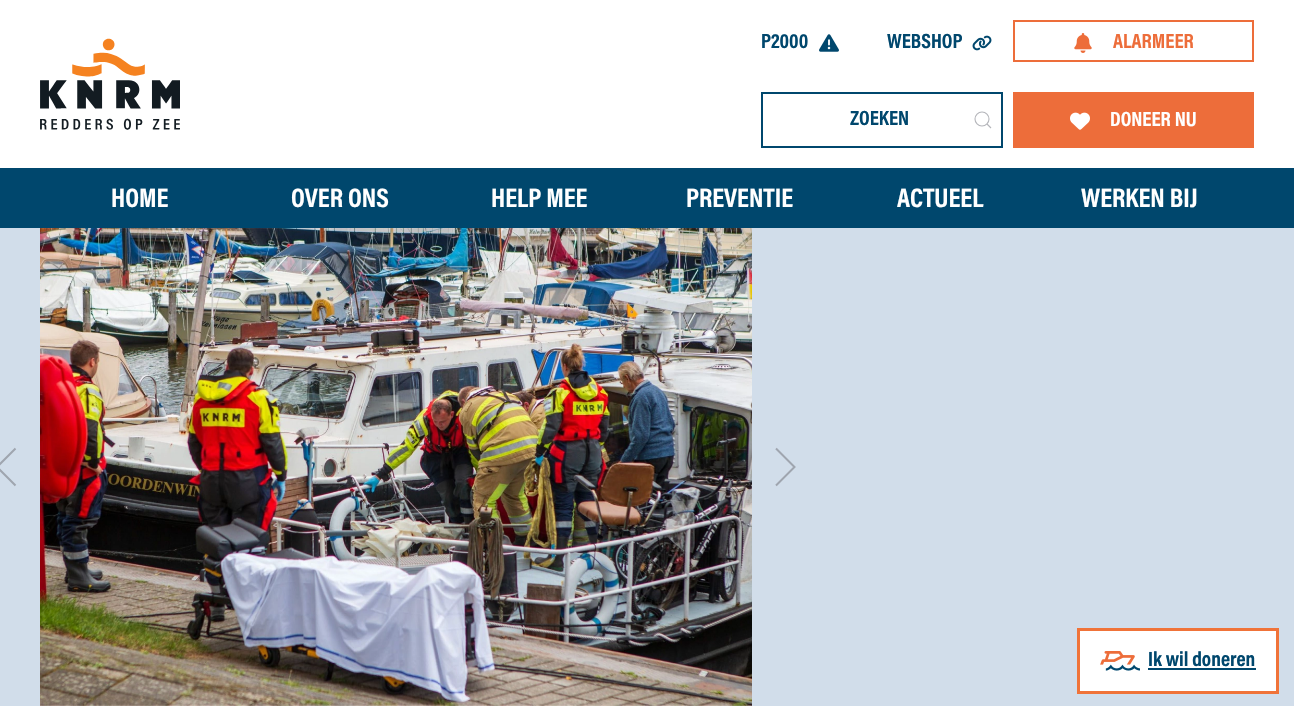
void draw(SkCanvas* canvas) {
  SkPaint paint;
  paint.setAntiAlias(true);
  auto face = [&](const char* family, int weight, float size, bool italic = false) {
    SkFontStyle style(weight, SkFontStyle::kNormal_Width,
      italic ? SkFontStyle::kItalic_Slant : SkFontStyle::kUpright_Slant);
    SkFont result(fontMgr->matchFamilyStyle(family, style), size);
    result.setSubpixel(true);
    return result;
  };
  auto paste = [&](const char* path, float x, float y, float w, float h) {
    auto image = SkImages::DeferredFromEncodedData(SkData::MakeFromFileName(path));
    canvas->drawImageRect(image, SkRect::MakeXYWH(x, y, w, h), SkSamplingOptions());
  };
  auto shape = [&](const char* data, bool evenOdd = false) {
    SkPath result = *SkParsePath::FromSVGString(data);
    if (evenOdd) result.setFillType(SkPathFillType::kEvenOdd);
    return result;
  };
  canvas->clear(0xffffffff);
  paste("img/1.png", 40, 38, 140, 92);
  paste("img/2.png", 819, 34, 20, 18);
  paste("img/3.png", 972, 35, 20, 16);
  paint.setStroke(true);
  paint.setStrokeWidth(2);
  paint.setColor(0xffed6d3a);
  canvas->drawRect(SkRect::MakeXYWH(1014, 21, 239, 40), paint);
  paste("img/4.png", 1074, 33, 18, 20);
  paint.setColor(0xff00476d);
  canvas->drawRect(SkRect::MakeXYWH(762, 93, 240, 54), paint);
  paint.setStrokeWidth(1.1f);
  paint.setColor(0xffb4b5ba);
  canvas->drawCircle(982, 119, 7, paint);
  canvas->drawPath(shape("M987 124L991 128Z"), paint);
  paint.setStroke(false);
  paint.setColor(0xffed6d3a);
  canvas->drawRect(SkRect::MakeXYWH(1013, 92, 241, 56), paint);
  paste("img/5.png", 1070, 112, 20, 18);
  paint.setColor(0xff00476d);
  canvas->drawRect(SkRect::MakeXYWH(0, 168, 1294, 60), paint);
  paint.setColor(0xffd1ddea);
  canvas->drawRect(SkRect::MakeXYWH(0, 228, 1294, 478), paint);
  paint.setStroke(true);
  paint.setStrokeWidth(2);
  paint.setColor(0xff9fa5af);
  canvas->drawPath(shape("M15.5 448.5L-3 467L15.5 485.5"), paint);
  paste("img/6.png", 40, 228, 712, 478);
  canvas->drawPath(shape("M776 485.5L794.5 467L776 448.5"), paint);
  paint.setStroke(false);
  paint.setColor(0xffffffff);
  canvas->drawRect(SkRect::MakeXYWH(1078.5f, 629.5f, 199, 63), paint);
  paint.setStroke(true);
  paint.setStrokeWidth(3);
  paint.setColor(0xfff07339);
  canvas->drawRect(SkRect::MakeXYWH(1078.5f, 629.5f, 199, 63), paint);
  paste("img/7.png", 1100, 651, 40, 20);
  paint.setStroke(false);
  paint.setColor(0xff00476d);
  canvas->drawRect(SkRect::MakeXYWH(1148, 668, 108, 2), paint);
  auto f0 = face("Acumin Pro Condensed", 700, 20.75f);
  canvas->drawString("P2000", 761, 48, f0, paint);
  canvas->drawString("WEBSHOP", 887, 48, f0, paint);
  paint.setColor(0xffed6d3a);
  canvas->drawString("ALARMEER", 1113, 48, f0, paint);
  paint.setColor(0xff00476d);
  canvas->drawString("ZOEKEN", 850, 125, f0, paint);
  paint.setColor(0xffffffff);
  canvas->drawString("DONEER NU", 1110, 126, f0, paint);
  auto f1 = face("Acumin Pro Condensed", 700, 27);
  {
    const struct { const char* s; float x, y; } items[] = {
      {"HOME", 111, 207},
      {"OVER ONS", 291, 207},
      {"HELP MEE", 491, 207},
      {"PREVENTIE", 686, 207},
      {"ACTUEEL", 897, 207},
      {"WERKEN BIJ", 1081, 207},
    };
    for (auto [s, x, y] : items) {
      canvas->drawString(s, x, y, f1, paint);
    }
  }
  paint.setColor(0xff00476d);
  canvas->drawString("Ik wil doneren", 1148, 666, f0, paint);
}
